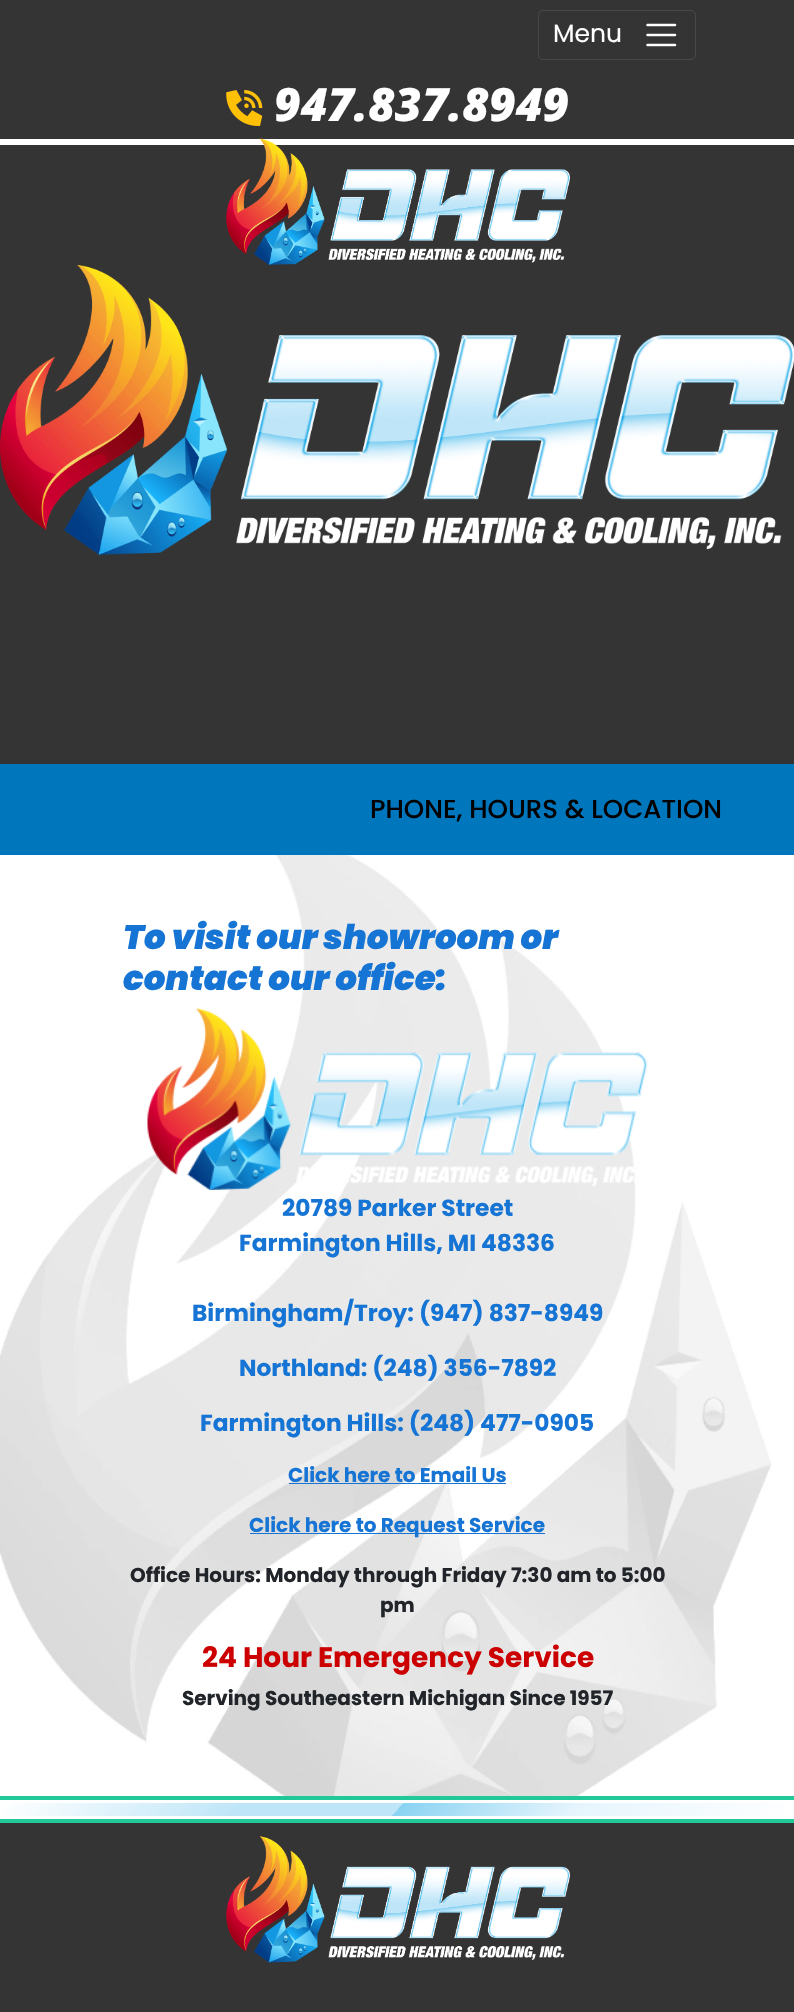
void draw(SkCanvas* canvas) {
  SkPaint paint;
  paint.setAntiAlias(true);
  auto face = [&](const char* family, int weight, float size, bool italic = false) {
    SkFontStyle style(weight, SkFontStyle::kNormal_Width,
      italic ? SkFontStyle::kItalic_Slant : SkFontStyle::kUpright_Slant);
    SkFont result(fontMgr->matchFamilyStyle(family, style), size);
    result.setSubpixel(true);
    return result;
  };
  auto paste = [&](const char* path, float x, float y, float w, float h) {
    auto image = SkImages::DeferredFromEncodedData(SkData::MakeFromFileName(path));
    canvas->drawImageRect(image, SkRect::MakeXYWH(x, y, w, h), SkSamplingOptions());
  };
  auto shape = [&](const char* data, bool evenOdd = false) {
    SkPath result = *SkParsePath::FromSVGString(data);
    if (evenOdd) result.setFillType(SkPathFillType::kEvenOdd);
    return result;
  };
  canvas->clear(0xffffffff);
  paint.setColor(0xff343434);
  canvas->drawRect(SkRect::MakeXYWH(0, 0, 794, 764), paint);
  paint.setStroke(true);
  paint.setStrokeWidth(1);
  paint.setColor(0xff484848);
  canvas->drawRoundRect(SkRect::MakeXYWH(538.5f, 10.5f, 157, 49), 4.5f, 4.5f, paint);
  paint.setStrokeWidth(2.5f);
  paint.setStrokeCap(SkPaint::kRound_Cap);
  paint.setColor(0xffffffff);
  canvas->drawPath(shape("M647.5 25H675M647.5 35H675M647.5 45H675"), paint);
  paste("img/1.png", 226, 90, 37, 36);
  paint.setStroke(false);
  canvas->drawRect(SkRect::MakeXYWH(0, 139, 794, 6), paint);
  paste("img/2.png", 226, 138, 344, 127);
  paste("img/3.png", 0, 265, 794, 290);
  paint.setColor(0xff0076bd);
  canvas->drawRect(SkRect::MakeXYWH(0, 764, 794, 91), paint);
  paste("img/4.png", 0, 855, 772, 941);
  paste("img/5.png", 147, 1008, 501, 182);
  {
    const struct { float x, y, w, h; SkColor color; } items[] = {
      {289, 1483, 217, 1, 0xff1574d4},
      {250, 1533, 295, 1, 0xff1574d4},
      {0, 1796, 794, 4, 0xff20c997},
    };
    for (auto [x, y, w, h, color] : items) {
      paint.setColor(color);
      canvas->drawRect(SkRect::MakeXYWH(x, y, w, h), paint);
    }
  }
  {
    const SkColor colors[] = {0xffffffff, 0xffbfe6f8, 0xffbee6f8, 0xff8ad3f3, 0xffe6f5fd, 0xffffffff};
    const float stops[] = {0, 0.3f, 0.5f, 0.5f, 0.72f, 1};
    const SkPoint ends[] = {{175, 1609}, {620, 2010}};
    paint.setShader(SkGradientShader::MakeLinear(ends, colors, stops, 6, SkTileMode::kClamp));
    paint.setAlpha(255);
  }
  canvas->drawRect(SkRect::MakeXYWH(0, 1803, 784, 13), paint);
  paint.setShader(nullptr);
  paint.setColor(0xff20c997);
  canvas->drawRect(SkRect::MakeXYWH(0, 1819, 794, 4), paint);
  paint.setColor(0xff343434);
  canvas->drawRect(SkRect::MakeXYWH(0, 1823, 794, 189), paint);
  paste("img/6.png", 226, 1836, 344, 127);
  auto f0 = face("Poppins", 400, 25);
  paint.setColor(0xffffffff);
  canvas->drawString("Menu", 553, 42, f0, paint);
  auto f1 = face("Open Sans", 800, 46, true);
  canvas->drawString("947.837.8949", 274, 121, f1, paint);
  auto f2 = face("Poppins", 500, 26);
  paint.setColor(0xff000000);
  canvas->drawString("PHONE, HOURS & LOCATION", 370, 818, f2, paint);
  auto f3 = face("Poppins", 900, 34, true);
  paint.setColor(0xff1574d4);
  canvas->drawString("To visit our showroom or", 123, 949, f3, paint);
  canvas->drawString("contact our office:", 123, 990, f3, paint);
  auto f4 = face("Poppins", 700, 23.3f);
  {
    const struct { const char* s; float x, y; } items[] = {
      {"20789 Parker Street", 282, 1216},
      {"Farmington Hills, MI 48336", 239, 1251},
      {"Birmingham/Troy: (947) 837-8949", 192, 1321},
      {"Northland: (248) 356-7892", 239, 1376},
      {"Farmington Hills: (248) 477-0905", 200, 1431},
    };
    for (auto [s, x, y] : items) {
      canvas->drawString(s, x, y, f4, paint);
    }
  }
  auto f5 = face("Poppins", 700, 20);
  canvas->drawString("Click here to Email Us", 288, 1482, f5, paint);
  canvas->drawString("Click here to Request Service", 249, 1532, f5, paint);
  paint.setColor(0xff212529);
  canvas->drawString("Office Hours: Monday through Friday 7:30 am to 5:00", 130, 1582, f5, paint);
  canvas->drawString("pm", 380, 1612, f5, paint);
  auto f6 = face("Poppins", 700, 28);
  paint.setColor(0xffcc0000);
  canvas->drawString("24 Hour Emergency Service", 202, 1667, f6, paint);
  paint.setColor(0xff212529);
  canvas->drawString("Serving Southeastern Michigan Since 1957", 182, 1705, f5, paint);
}
